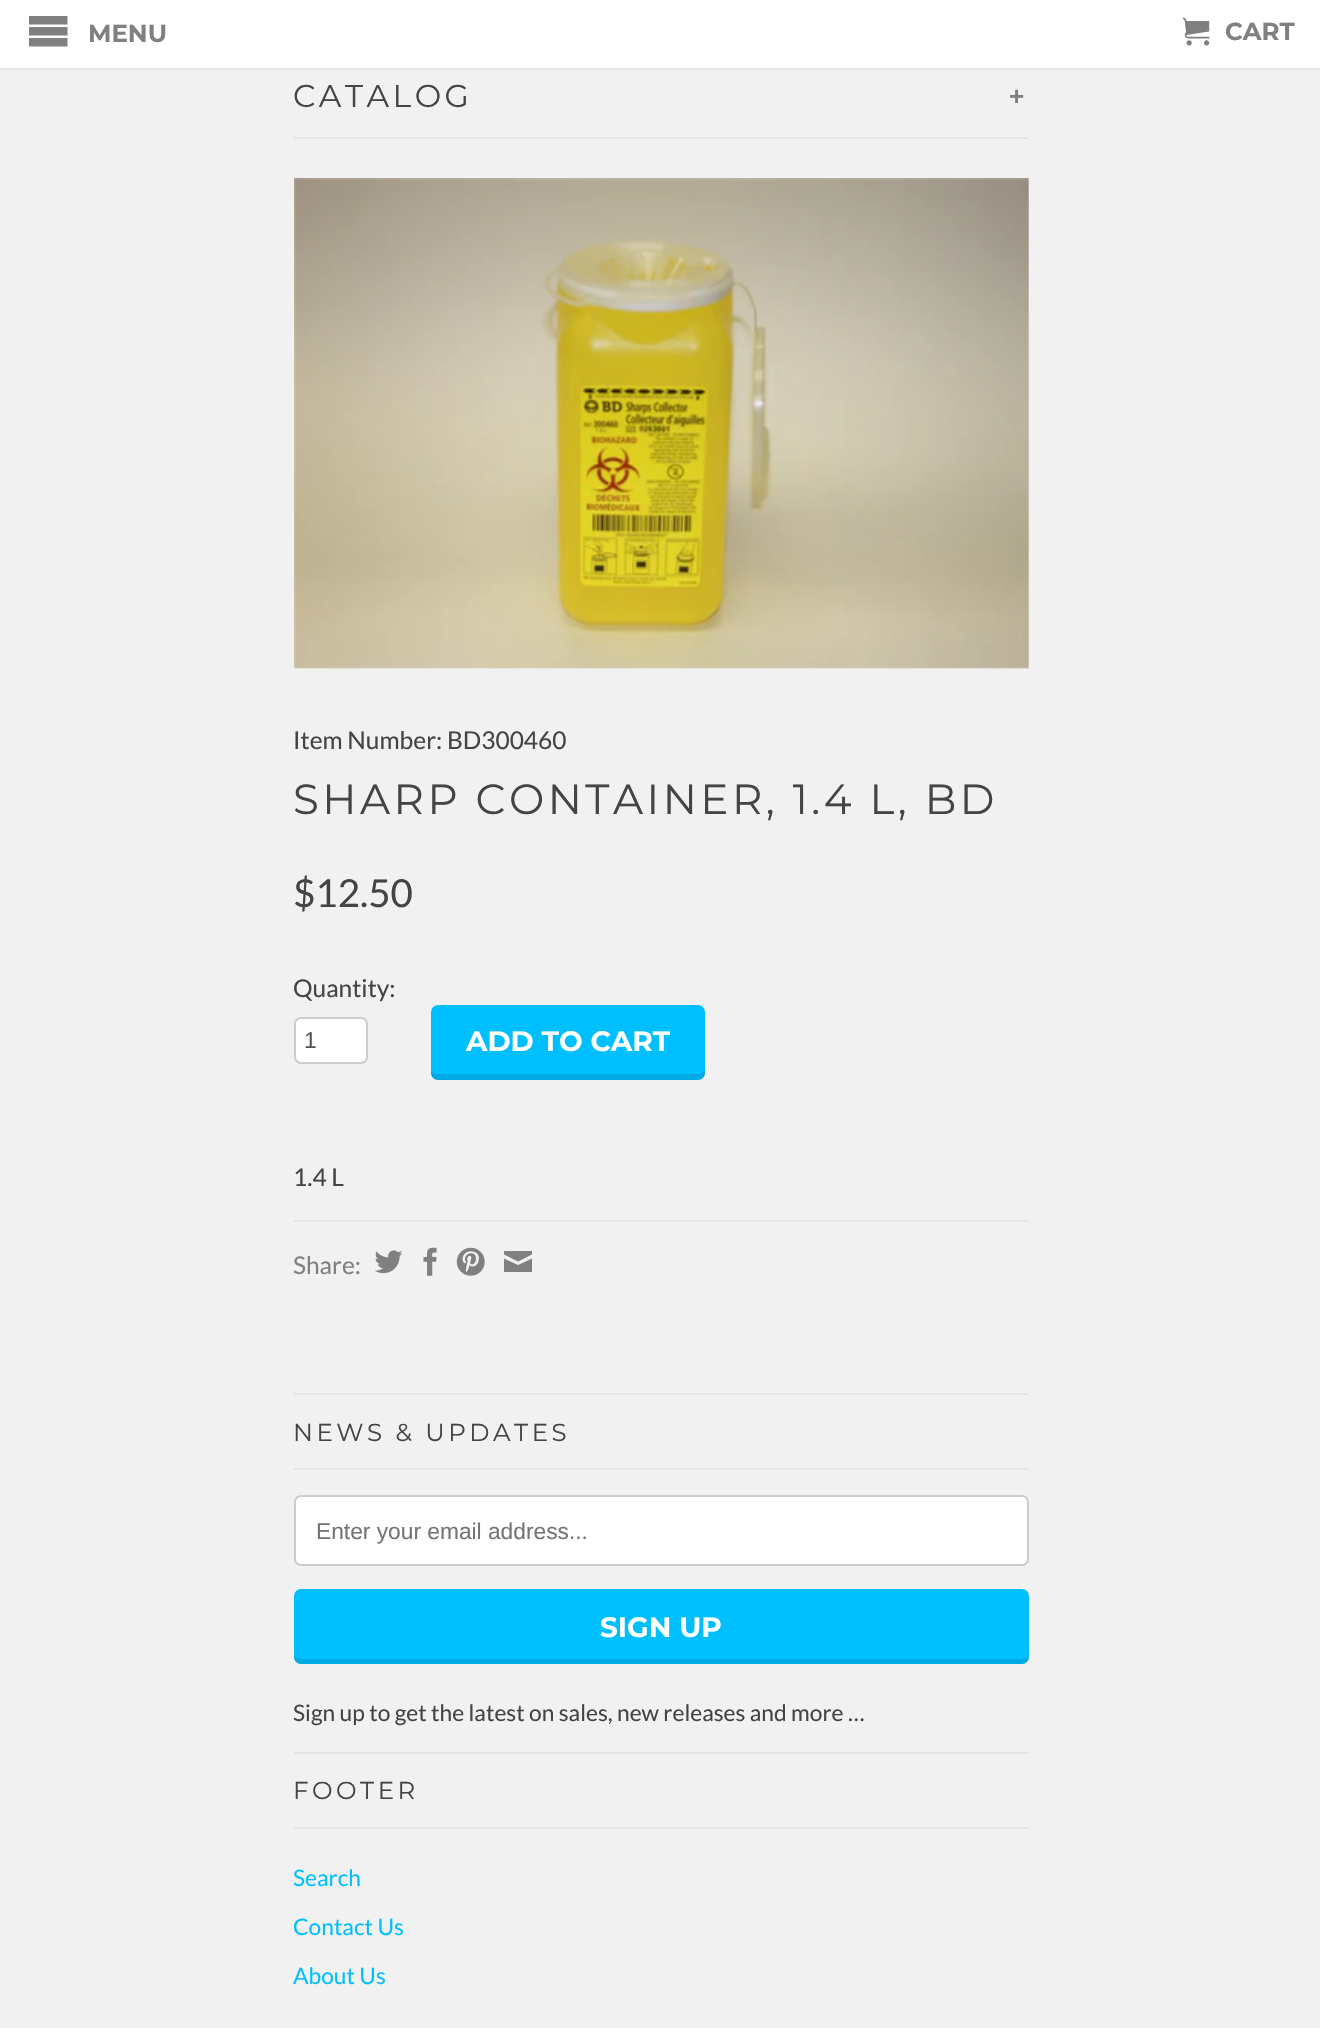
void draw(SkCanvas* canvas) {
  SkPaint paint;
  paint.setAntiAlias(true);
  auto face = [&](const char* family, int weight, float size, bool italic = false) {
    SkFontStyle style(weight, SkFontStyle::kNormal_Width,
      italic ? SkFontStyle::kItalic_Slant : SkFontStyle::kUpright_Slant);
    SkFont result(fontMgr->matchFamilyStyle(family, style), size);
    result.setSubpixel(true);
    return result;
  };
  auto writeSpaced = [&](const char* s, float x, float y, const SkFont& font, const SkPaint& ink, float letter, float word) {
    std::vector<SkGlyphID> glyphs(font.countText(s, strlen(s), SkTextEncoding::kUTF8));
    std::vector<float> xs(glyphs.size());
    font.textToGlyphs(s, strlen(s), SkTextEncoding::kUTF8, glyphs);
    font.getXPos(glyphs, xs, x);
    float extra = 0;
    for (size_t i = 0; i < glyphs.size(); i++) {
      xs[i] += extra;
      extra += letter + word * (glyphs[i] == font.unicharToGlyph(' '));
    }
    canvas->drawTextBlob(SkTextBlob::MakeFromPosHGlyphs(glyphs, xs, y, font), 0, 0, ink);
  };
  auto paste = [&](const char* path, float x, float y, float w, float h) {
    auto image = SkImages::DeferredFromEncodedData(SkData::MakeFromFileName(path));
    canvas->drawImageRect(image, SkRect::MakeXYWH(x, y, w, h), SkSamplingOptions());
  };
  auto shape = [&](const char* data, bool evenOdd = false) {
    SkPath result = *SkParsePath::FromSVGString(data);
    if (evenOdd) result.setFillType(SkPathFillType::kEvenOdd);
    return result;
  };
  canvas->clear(0xfff1f1f1);
  paint.setColor(0xffffffff);
  canvas->drawRect(SkRect::MakeXYWH(0, 0, 1320, 68), paint);
  paint.setColor(0xffe5e5e5);
  canvas->drawRect(SkRect::MakeXYWH(0, 68, 1320, 2), paint);
  paint.setColor(0xff808080);
  canvas->drawPath(shape("M29 16V24.5H67.5V16ZM29 27V35.5H67.5V27ZM29 38V46.5H67.5V38Z"), paint);
  paste("img/1.png", 1183, 17, 27, 29);
  paint.setColor(0xffe5e5e5);
  canvas->drawRect(SkRect::MakeXYWH(294, 137, 735, 2), paint);
  paste("img/2.png", 294, 178, 735, 491);
  paint.setColor(0xffffffff);
  canvas->drawRoundRect(SkRect::MakeXYWH(295, 1018, 72, 45), 6, 6, paint);
  paint.setStroke(true);
  paint.setStrokeWidth(2);
  paint.setColor(0xffcccccc);
  canvas->drawRoundRect(SkRect::MakeXYWH(295, 1018, 72, 45), 6, 6, paint);
  paint.setStroke(false);
  paint.setColor(0xff00bfff);
  canvas->drawRoundRect(SkRect::MakeXYWH(431, 1005, 274, 75), 7, 7, paint);
  paint.setColor(0x1a000000);
  canvas->drawPath(shape("M431 1071V1073C431 1077 434 1080 438 1080H698C702 1080 705 1077 705 1073V1068C705 1071 702 1074 698 1074H438C435 1074 432 1073 431 1071Z"), paint);
  paint.setColor(0xffe5e5e5);
  canvas->drawRect(SkRect::MakeXYWH(294, 1220, 735, 2), paint);
  paint.setColor(0xff808080);
  canvas->drawPath(shape("M518 1261.5L504 1254.5V1251H532V1254.5ZM518 1265L532 1258.5V1272H504V1258.5Z"), paint);
  paste("img/3.png", 374, 1250, 29, 24);
  paste("img/4.png", 423, 1247, 14, 29);
  paste("img/5.png", 456, 1247, 29, 29);
  paint.setColor(0xffe5e5e5);
  canvas->drawRect(SkRect::MakeXYWH(294, 1393, 735, 2), paint);
  canvas->drawRect(SkRect::MakeXYWH(294, 1468, 735, 2), paint);
  paint.setColor(0xffffffff);
  canvas->drawRoundRect(SkRect::MakeXYWH(295, 1496, 733, 69), 6, 6, paint);
  paint.setStroke(true);
  paint.setColor(0xffcccccc);
  canvas->drawRoundRect(SkRect::MakeXYWH(295, 1496, 733, 69), 6, 6, paint);
  paint.setStroke(false);
  paint.setColor(0xff00bfff);
  canvas->drawRoundRect(SkRect::MakeXYWH(294, 1589, 735, 75), 7, 7, paint);
  paint.setColor(0x1a000000);
  canvas->drawPath(shape("M294 1652C294 1657 294 1664 301 1664H1022C1029 1664 1029 1657 1029 1652C1029 1656 1026 1659 1022 1659H301C297 1659 294 1656 294 1652Z"), paint);
  paint.setColor(0xffe5e5e5);
  canvas->drawRect(SkRect::MakeXYWH(294, 1752, 735, 2), paint);
  canvas->drawRect(SkRect::MakeXYWH(294, 1827, 735, 2), paint);
  auto f0 = face("Montserrat", 700, 24.5f);
  paint.setColor(0xff808080);
  canvas->drawString("MENU", 88, 42, f0, paint);
  canvas->drawString("CART", 1225, 40, f0, paint);
  auto f1 = face("Montserrat", 400, 31.5f);
  paint.setColor(0xff444444);
  writeSpaced("CATALOG", 293, 107, f1, paint, 3.5f, 0);
  auto f2 = face("Liberation Sans", 700, 26);
  paint.setColor(0xff808080);
  writeSpaced("+", 1009, 105, f2, paint, 3.5f, 0);
  auto f3 = face("Lato", 400, 24.5f);
  paint.setColor(0xff444444);
  canvas->drawString("Item Number: BD300460", 293, 749, f3, paint);
  auto f4 = face("Montserrat", 400, 42);
  writeSpaced("SHARP CONTAINER, 1.4 L, BD", 293, 814, f4, paint, 3.5f, 0);
  auto f5 = face("Lato", 400, 38.5f);
  canvas->drawString("$12.50", 293, 907, f5, paint);
  canvas->drawString("Quantity:", 293, 997, f3, paint);
  auto f6 = face("Liberation Sans", 400, 22.75f);
  paint.setColor(0xff555555);
  canvas->drawString("1", 304, 1048, f6, paint);
  auto f7 = face("Montserrat", 700, 28);
  paint.setColor(0xffffffff);
  canvas->drawString("ADD TO CART", 466, 1051, f7, paint);
  paint.setColor(0xff444444);
  canvas->drawString("1.4 L", 293, 1186, f3, paint);
  paint.setColor(0xff808080);
  canvas->drawString("Share:", 293, 1274, f3, paint);
  auto f8 = face("Montserrat", 400, 24.5f);
  paint.setColor(0xff444444);
  writeSpaced("NEWS & UPDATES", 293, 1441, f8, paint, 3.5f, 0);
  paint.setColor(0xff757575);
  canvas->drawString("Enter your email address...", 316, 1539, f6, paint);
  paint.setColor(0xffffffff);
  canvas->drawString("SIGN UP", 600, 1637, f7, paint);
  auto f9 = face("Lato", 400, 22.75f);
  paint.setColor(0xff444444);
  canvas->drawString("Sign up to get the latest on sales, new releases and more …", 293, 1721, f9, paint);
  writeSpaced("FOOTER", 293, 1799, f8, paint, 3.5f, 0);
  paint.setColor(0xff00bfff);
  {
    const struct { const char* s; float x, y; } items[] = {
      {"Search", 293, 1886},
      {"Contact Us", 293, 1935},
      {"About Us", 293, 1984},
    };
    for (auto [s, x, y] : items) {
      canvas->drawString(s, x, y, f9, paint);
    }
  }
}
